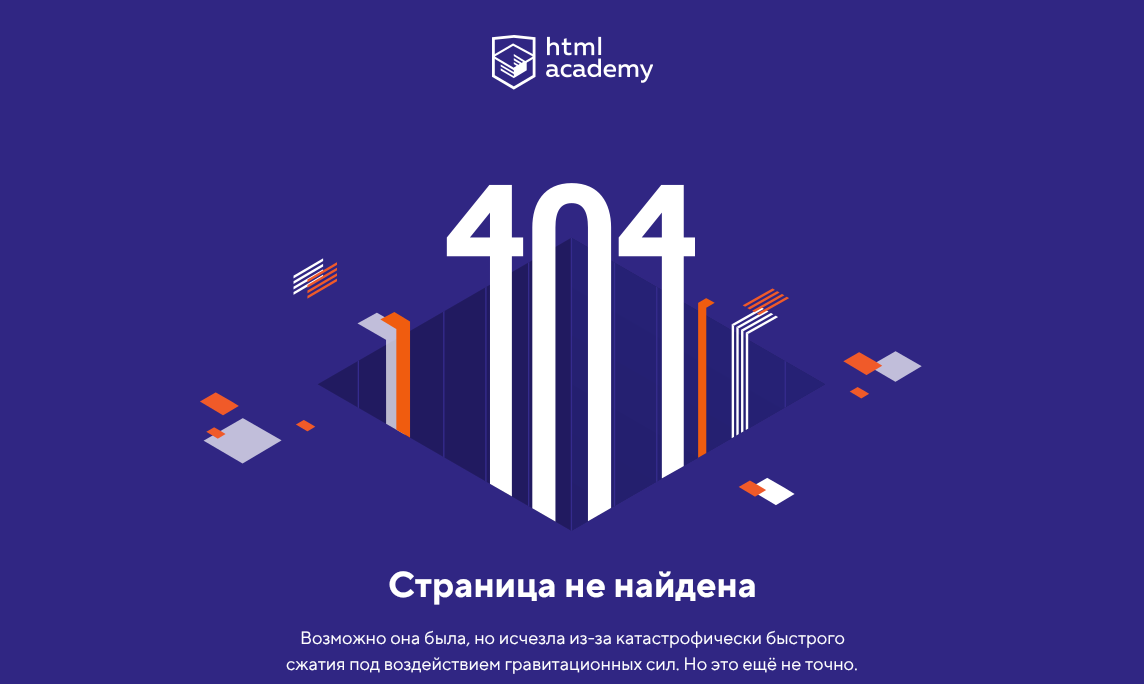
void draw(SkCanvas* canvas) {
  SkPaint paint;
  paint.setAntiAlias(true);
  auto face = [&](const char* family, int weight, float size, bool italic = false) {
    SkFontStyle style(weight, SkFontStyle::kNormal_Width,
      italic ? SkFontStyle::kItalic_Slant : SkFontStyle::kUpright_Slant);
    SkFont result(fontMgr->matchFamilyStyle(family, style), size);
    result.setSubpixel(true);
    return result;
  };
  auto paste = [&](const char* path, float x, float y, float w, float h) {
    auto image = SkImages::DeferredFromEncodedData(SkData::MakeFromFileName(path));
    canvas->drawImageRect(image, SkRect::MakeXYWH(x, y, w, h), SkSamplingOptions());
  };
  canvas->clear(0xff302683);
  paste("img/1.png", 492, 35, 161, 55);
  paste("img/2.png", 200, 183, 722, 348);
  auto f0 = face("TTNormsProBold", 700, 36);
  paint.setColor(0xffffffff);
  canvas->drawString("Страница не найдена", 388, 597, f0, paint);
  auto f1 = face("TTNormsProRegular", 400, 18);
  canvas->drawString("Возможно она была, но исчезла из-за катастрофически быстрого", 300, 644, f1, paint);
  canvas->drawString("сжатия под воздействием гравитационных сил. Но это ещё не точно.", 286, 670, f1, paint);
}
